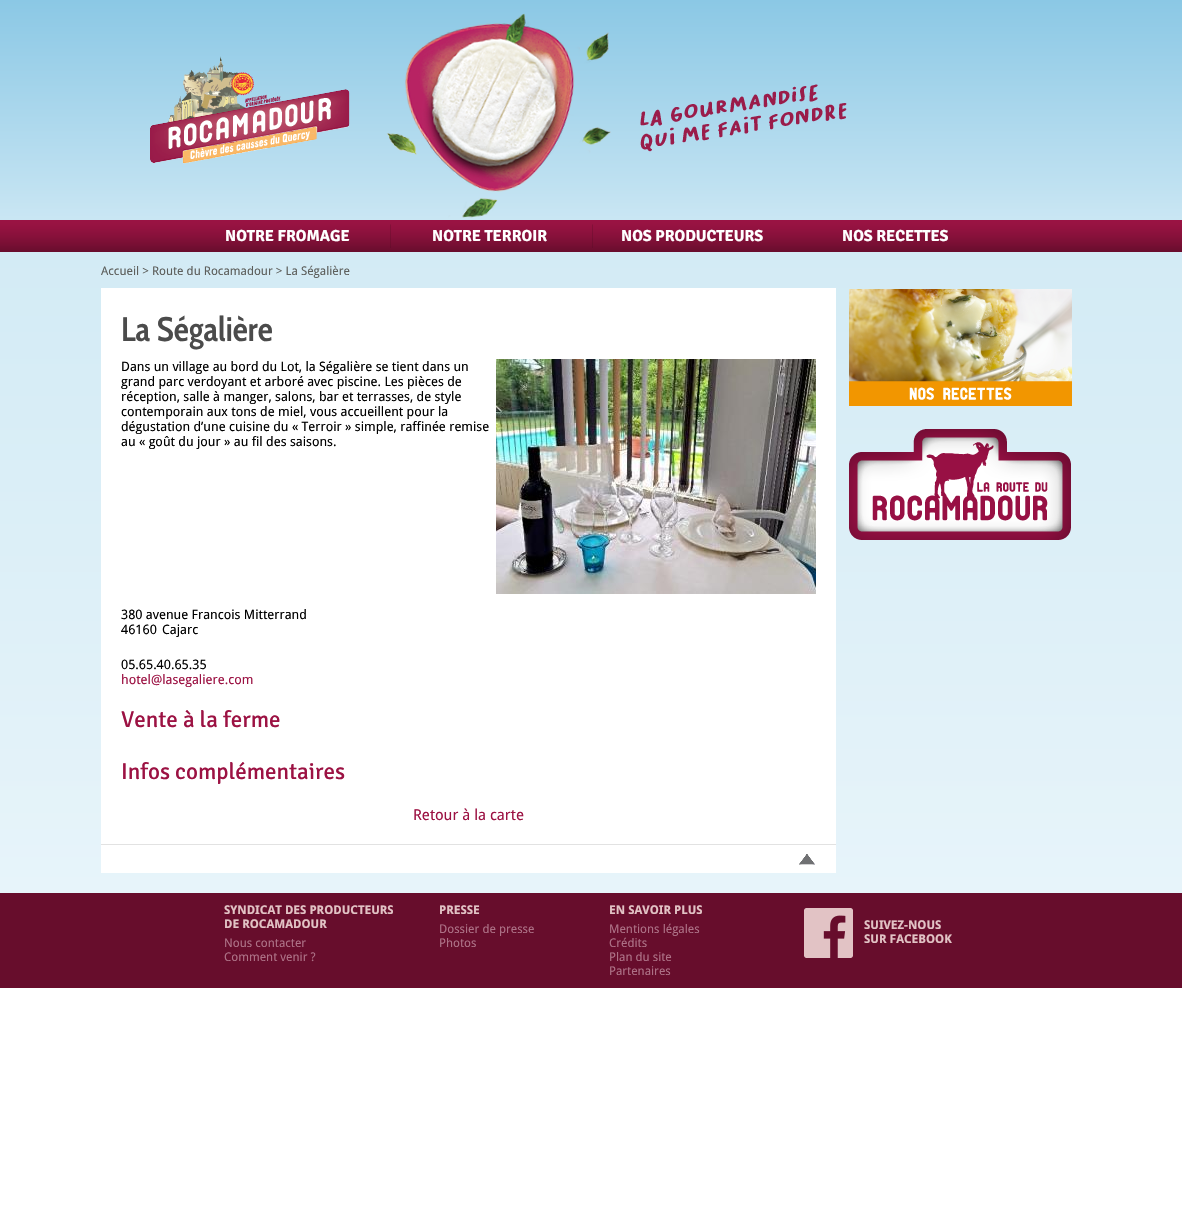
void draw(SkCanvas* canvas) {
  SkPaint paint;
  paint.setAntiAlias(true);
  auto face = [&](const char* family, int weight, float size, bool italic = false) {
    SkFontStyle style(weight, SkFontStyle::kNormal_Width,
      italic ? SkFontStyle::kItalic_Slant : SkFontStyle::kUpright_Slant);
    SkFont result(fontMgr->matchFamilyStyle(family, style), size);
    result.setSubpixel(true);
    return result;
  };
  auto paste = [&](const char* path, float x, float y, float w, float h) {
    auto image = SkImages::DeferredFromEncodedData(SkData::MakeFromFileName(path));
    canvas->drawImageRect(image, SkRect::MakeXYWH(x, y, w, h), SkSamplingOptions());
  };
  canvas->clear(0xffffffff);
  paste("img/1.png", 0, 0, 1182, 220);
  paste("img/2.png", 150, 13, 697, 205);
  paste("img/3.png", 0, 220, 1182, 32);
  paste("img/4.png", 390, 224, 1, 24);
  paste("img/4.png", 592, 224, 1, 24);
  {
    const SkColor colors[] = {0xffd3ebf5, 0xffe7f4fa};
    const float stops[] = {0, 1};
    const SkPoint ends[] = {{591, 252}, {591, 893}};
    paint.setShader(SkGradientShader::MakeLinear(ends, colors, stops, 2, SkTileMode::kClamp));
    paint.setAlpha(255);
  }
  canvas->drawRect(SkRect::MakeXYWH(0, 252, 1182, 641), paint);
  paint.setShader(nullptr);
  paint.setColor(0xffffffff);
  canvas->drawRect(SkRect::MakeXYWH(101, 288, 735, 556), paint);
  paste("img/5.png", 496, 359, 320, 235);
  canvas->drawRect(SkRect::MakeXYWH(101, 845, 735, 28), paint);
  paint.setColor(0xffe2e2e2);
  canvas->drawRect(SkRect::MakeXYWH(101, 844, 735, 1), paint);
  paste("img/6.png", 799, 854, 16, 11);
  paste("img/7.png", 849, 289, 223, 117);
  paste("img/8.png", 849, 429, 222, 111);
  paint.setColor(0xff670d2c);
  canvas->drawRect(SkRect::MakeXYWH(0, 893, 1182, 95), paint);
  paste("img/9.png", 804, 908, 49, 50);
  auto f0 = face("Signika", 700, 16);
  paint.setColor(0xffffffff);
  {
    const struct { const char* s; float x, y; } items[] = {
      {"NOTRE FROMAGE", 225, 241},
      {"NOTRE TERROIR", 432, 241},
      {"NOS PRODUCTEURS", 621, 241},
      {"NOS RECETTES", 842, 241},
    };
    for (auto [s, x, y] : items) {
      canvas->drawString(s, x, y, f0, paint);
    }
  }
  auto f1 = face("Droid Sans", 400, 12);
  paint.setColor(0xff5d5f5c);
  canvas->drawString("Accueil > Route du Rocamadour > La Ségalière", 101, 275, f1, paint);
  auto f2 = face("Cabin Condensed", 600, 34);
  paint.setColor(0xff4b4b4b);
  canvas->drawString("La Ségalière", 121, 341, f2, paint);
  auto f3 = face("Droid Sans", 400, 13);
  paint.setColor(0xff000000);
  {
    const struct { const char* s; float x, y; } items[] = {
      {"Dans un village au bord du Lot, la Ségalière se tient dans un", 121, 371},
      {"grand parc verdoyant et arboré avec piscine. Les pièces de", 121, 386},
      {"réception, salle à manger, salons, bar et terrasses, de style", 121, 401},
      {"contemporain aux tons de miel, vous accueillent pour la", 121, 416},
      {"dégustation d’une cuisine du « Terroir » simple, raffinée remise", 121, 431},
      {"au « goût du jour » au fil des saisons.", 121, 446},
      {"380 avenue Francois Mitterrand", 121, 619},
      {"46160", 121, 634},
      {"Cajarc", 162, 634},
      {"05.65.40.65.35", 121, 669},
    };
    for (auto [s, x, y] : items) {
      canvas->drawString(s, x, y, f3, paint);
    }
  }
  paint.setColor(0xff9c1243);
  canvas->drawString("hotel@lasegaliere.com", 121, 684, f3, paint);
  auto f4 = face("Signika", 400, 23);
  canvas->drawString("Vente à la ferme", 121, 727, f4, paint);
  canvas->drawString("Infos complémentaires", 121, 779, f4, paint);
  auto f5 = face("Droid Sans", 400, 15);
  canvas->drawString("Retour à la carte", 413, 820, f5, paint);
  auto f6 = face("Droid Sans", 700, 12);
  paint.setColor(0xffe2c3c5);
  canvas->drawString("SYNDICAT DES PRODUCTEURS", 224, 914, f6, paint);
  canvas->drawString("DE ROCAMADOUR", 224, 928, f6, paint);
  paint.setColor(0xffad7186);
  canvas->drawString("Nous contacter", 224, 947, f1, paint);
  canvas->drawString("Comment venir ?", 224, 961, f1, paint);
  paint.setColor(0xffe2c3c5);
  canvas->drawString("PRESSE", 439, 914, f6, paint);
  paint.setColor(0xffad7186);
  canvas->drawString("Dossier de presse", 439, 933, f1, paint);
  canvas->drawString("Photos", 439, 947, f1, paint);
  paint.setColor(0xffe2c3c5);
  canvas->drawString("EN SAVOIR PLUS", 609, 914, f6, paint);
  paint.setColor(0xffad7186);
  {
    const struct { const char* s; float x, y; } items[] = {
      {"Mentions légales", 609, 933},
      {"Crédits", 609, 947},
      {"Plan du site", 609, 961},
      {"Partenaires", 609, 975},
    };
    for (auto [s, x, y] : items) {
      canvas->drawString(s, x, y, f1, paint);
    }
  }
  paint.setColor(0xffe2c3c5);
  canvas->drawString("SUIVEZ-NOUS", 864, 929, f6, paint);
  canvas->drawString("SUR FACEBOOK", 864, 943, f6, paint);
}
